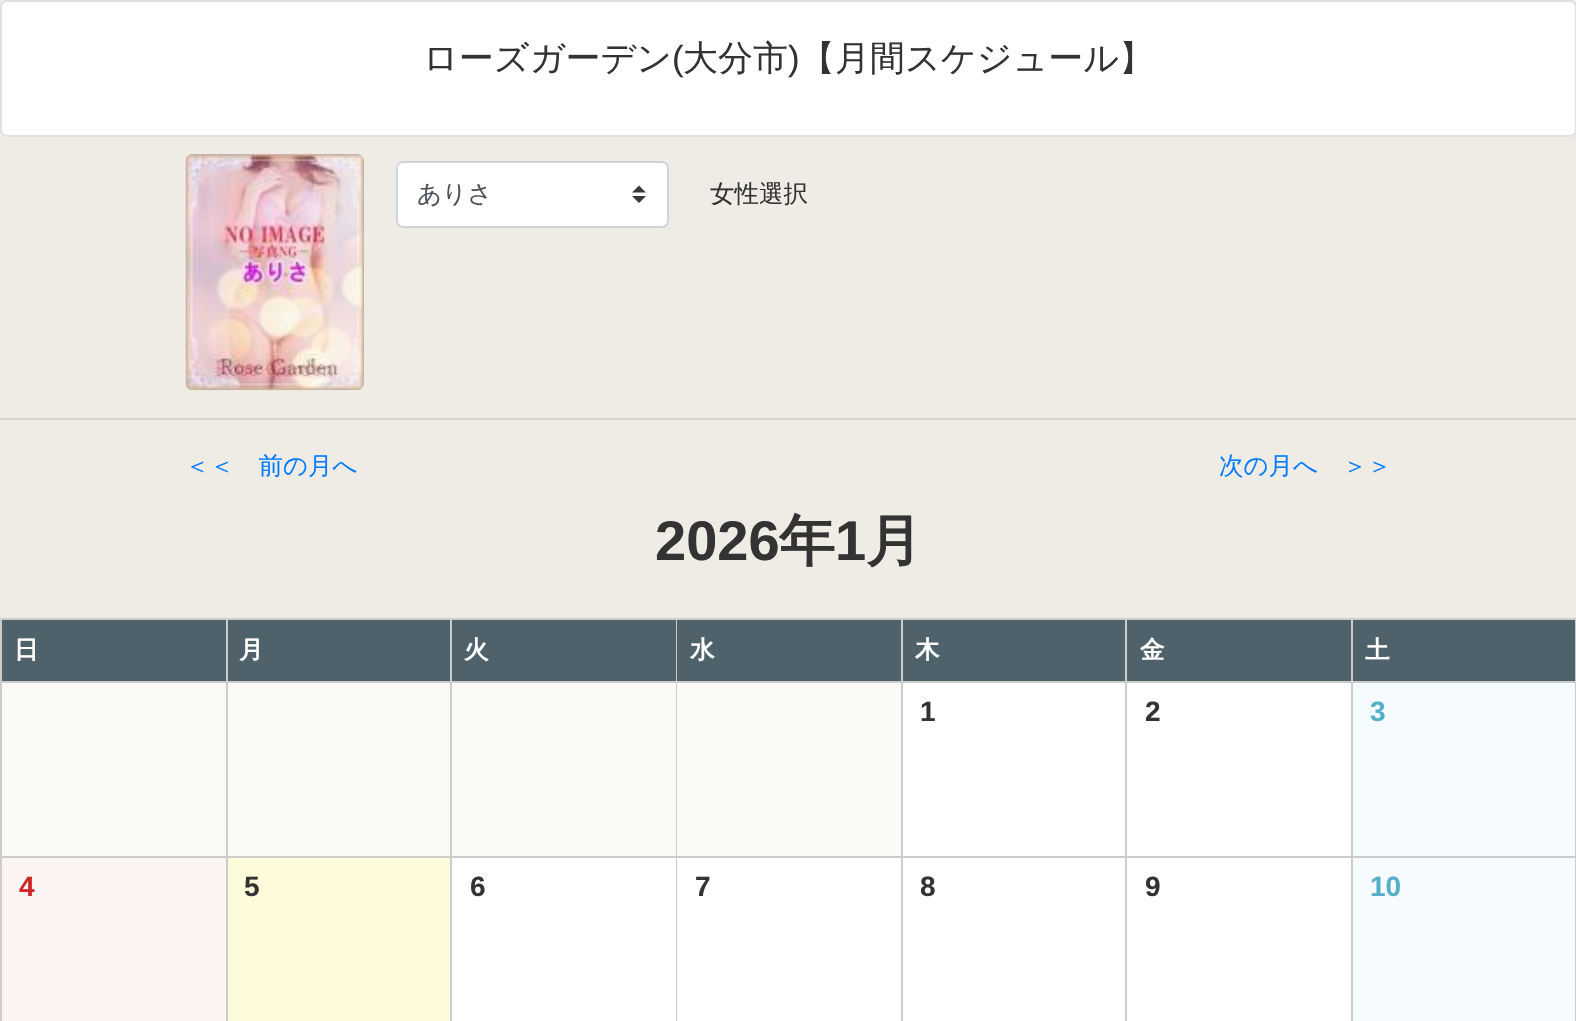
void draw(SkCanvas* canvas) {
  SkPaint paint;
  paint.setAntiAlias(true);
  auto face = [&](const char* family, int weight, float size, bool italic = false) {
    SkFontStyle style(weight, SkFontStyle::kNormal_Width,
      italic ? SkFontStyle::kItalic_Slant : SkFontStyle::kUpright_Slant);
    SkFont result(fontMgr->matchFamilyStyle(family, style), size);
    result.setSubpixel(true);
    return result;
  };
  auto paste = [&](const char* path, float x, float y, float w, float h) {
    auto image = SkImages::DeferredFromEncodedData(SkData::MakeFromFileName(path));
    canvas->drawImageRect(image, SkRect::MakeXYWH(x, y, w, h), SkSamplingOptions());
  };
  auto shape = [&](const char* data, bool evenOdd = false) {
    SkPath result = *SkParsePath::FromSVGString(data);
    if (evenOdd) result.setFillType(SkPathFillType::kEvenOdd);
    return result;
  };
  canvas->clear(0xffefece5);
  paint.setColor(0xffffffff);
  canvas->drawRoundRect(SkRect::MakeXYWH(0, 0, 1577, 137), 7, 7, paint);
  paint.setStroke(true);
  paint.setStrokeWidth(2);
  paint.setColor(0x1f000000);
  canvas->drawRoundRect(SkRect::MakeXYWH(1, 1, 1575, 135), 6, 6, paint);
  paste("img/1.png", 185, 154, 179, 237);
  paint.setStroke(false);
  paint.setColor(0xffffffff);
  canvas->drawRoundRect(SkRect::MakeXYWH(396, 161, 273, 67), 7, 7, paint);
  paint.setColor(0xff343a40);
  canvas->drawPath(shape("M639 185.5L632 192.5H646ZM639 203L632 196H646Z"), paint);
  paint.setStroke(true);
  paint.setColor(0xffced4da);
  canvas->drawRoundRect(SkRect::MakeXYWH(397, 162, 271, 65), 6, 6, paint);
  paint.setStroke(false);
  {
    const struct { float x, y, w, h; SkColor color; } items[] = {
      {0, 418, 1576, 2, 0xffd7d4ce},
      {0, 618, 1576, 2, 0xffcccccc},
      {0, 618, 2, 403, 0xffcccccc},
      {2, 620, 224, 61, 0xff4f616b},
      {226, 620, 2, 401, 0xffcccccc},
      {2, 681, 226, 2, 0xffcccccc},
      {228, 620, 222, 61, 0xff4f616b},
      {450, 620, 2, 401, 0xffcccccc},
      {228, 681, 224, 2, 0xffcccccc},
      {452, 620, 224, 61, 0xff4f616b},
      {676, 620, 1, 401, 0xffcccccc},
      {452, 681, 225, 2, 0xffcccccc},
      {677, 620, 224, 61, 0xff4f616b},
      {901, 620, 2, 401, 0xffcccccc},
      {677, 681, 226, 2, 0xffcccccc},
      {903, 620, 222, 61, 0xff4f616b},
      {1125, 620, 2, 401, 0xffcccccc},
      {903, 681, 224, 2, 0xffcccccc},
      {1127, 620, 224, 61, 0xff4f616b},
      {1351, 620, 2, 401, 0xffcccccc},
      {1127, 681, 226, 2, 0xffcccccc},
      {1353, 620, 222, 61, 0xff4f616b},
      {1575, 620, 1, 401, 0xffcccccc},
      {1353, 681, 223, 2, 0xffcccccc},
      {2, 683, 224, 173, 0xfffbfaf7},
      {2, 856, 1574, 2, 0xffcccccc},
      {228, 683, 222, 173, 0xfffbfaf7},
      {452, 683, 224, 173, 0xfffbfaf7},
      {677, 683, 224, 173, 0xfffbfaf7},
      {903, 683, 222, 173, 0xffffffff},
      {1127, 683, 224, 173, 0xffffffff},
      {1353, 683, 222, 173, 0xfff5fbfe},
      {2, 858, 224, 163, 0xfffcf3f3},
      {228, 858, 222, 163, 0xfffefbda},
      {452, 858, 224, 163, 0xffffffff},
      {677, 858, 224, 163, 0xffffffff},
      {903, 858, 222, 163, 0xffffffff},
      {1127, 858, 224, 163, 0xffffffff},
      {1353, 858, 222, 163, 0xfff5fbfe},
    };
    for (auto [x, y, w, h, color] : items) {
      paint.setColor(color);
      canvas->drawRect(SkRect::MakeXYWH(x, y, w, h), paint);
    }
  }
  auto f0 = face("WenQuanYi Zen Hei", 500, 35);
  paint.setColor(0xff333333);
  canvas->drawString("ローズガーデン", 423, 70, f0, paint);
  auto f1 = face("Liberation Sans", 400, 35);
  canvas->drawString("(", 672, 70, f1, paint);
  canvas->drawString("大分市", 683, 70, f0, paint);
  canvas->drawString(")", 788, 70, f1, paint);
  canvas->drawString("【月間スケジュール】", 800, 70, f0, paint);
  auto f2 = face("WenQuanYi Zen Hei", 500, 24.5f);
  paint.setColor(0xff495057);
  canvas->drawString("ありさ", 417, 202, f2, paint);
  paint.setColor(0xff333333);
  canvas->drawString("女性選択", 710, 202, f2, paint);
  paint.setColor(0xff007bff);
  canvas->drawString("＜＜　前の月へ", 185, 474, f2, paint);
  canvas->drawString("次の月へ　＞＞", 1219, 474, f2, paint);
  auto f3 = face("Liberation Sans", 700, 56);
  paint.setColor(0xff333333);
  canvas->drawString("2026", 655, 560, f3, paint);
  auto f4 = face("WenQuanYi Zen Hei", 700, 56);
  canvas->drawString("年", 779, 560, f4, paint);
  canvas->drawString("1", 835, 560, f3, paint);
  canvas->drawString("月", 866, 560, f4, paint);
  auto f5 = face("WenQuanYi Zen Hei", 700, 24.5f);
  paint.setColor(0xffffffff);
  {
    const struct { const char* s; float x, y; } items[] = {
      {"日", 14, 658},
      {"月", 239, 658},
      {"火", 464, 658},
      {"水", 690, 658},
      {"木", 915, 658},
      {"金", 1140, 658},
      {"土", 1365, 658},
    };
    for (auto [s, x, y] : items) {
      canvas->drawString(s, x, y, f5, paint);
    }
  }
  auto f6 = face("Liberation Sans", 700, 28);
  paint.setColor(0xff333333);
  canvas->drawString("1", 920, 721, f6, paint);
  canvas->drawString("2", 1145, 721, f6, paint);
  paint.setColor(0xff54afc8);
  canvas->drawString("3", 1370, 721, f6, paint);
  paint.setColor(0xffce2727);
  canvas->drawString("4", 19, 896, f6, paint);
  paint.setColor(0xff333333);
  {
    const struct { const char* s; float x, y; } items[] = {
      {"5", 244, 896},
      {"6", 470, 896},
      {"7", 695, 896},
      {"8", 920, 896},
      {"9", 1145, 896},
    };
    for (auto [s, x, y] : items) {
      canvas->drawString(s, x, y, f6, paint);
    }
  }
  paint.setColor(0xff54afc8);
  canvas->drawString("10", 1370, 896, f6, paint);
}
